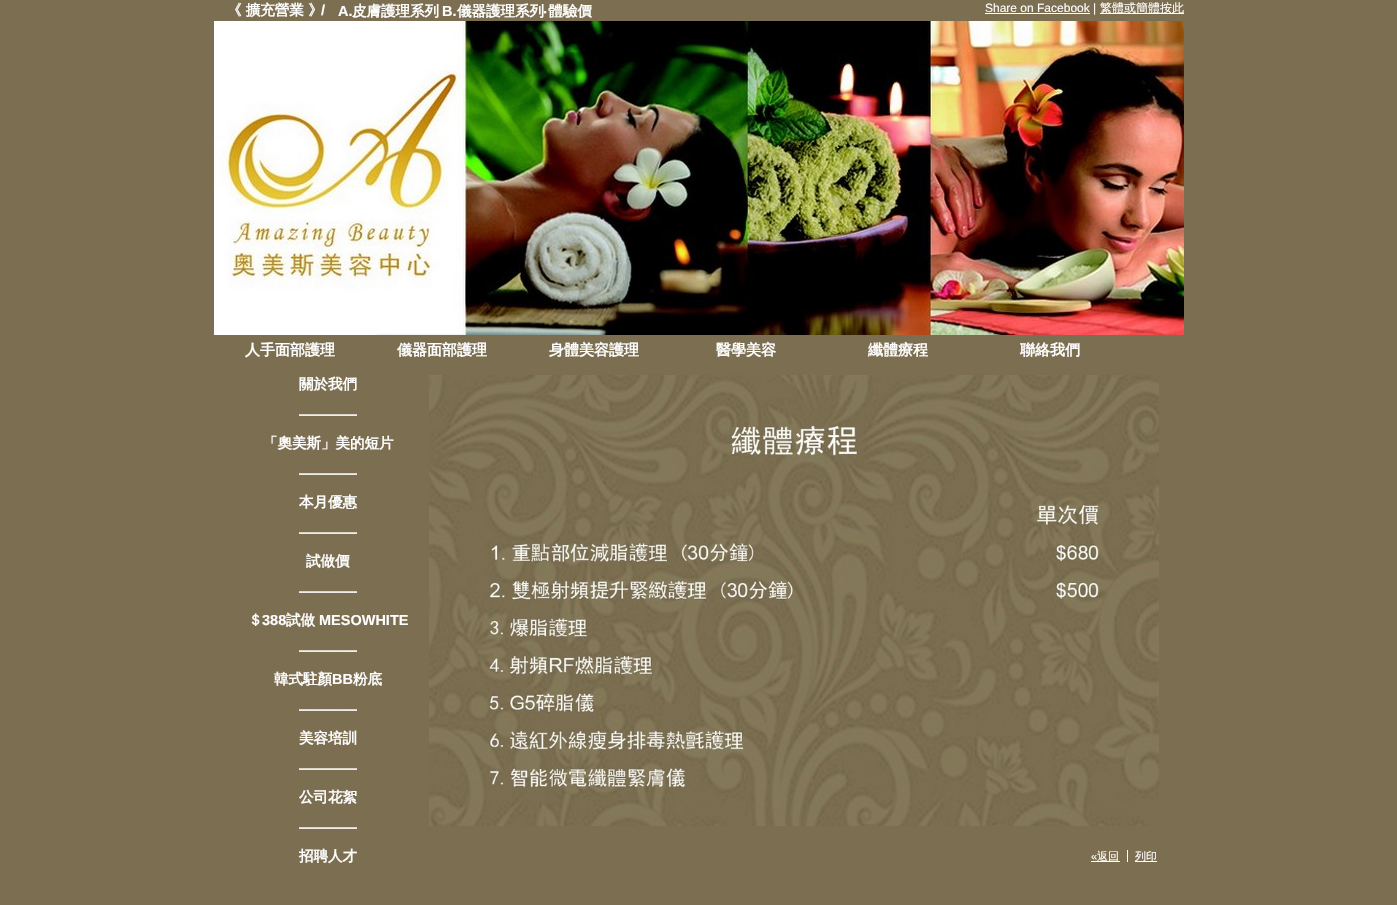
void draw(SkCanvas* canvas) {
  SkPaint paint;
  paint.setAntiAlias(true);
  auto face = [&](const char* family, int weight, float size, bool italic = false) {
    SkFontStyle style(weight, SkFontStyle::kNormal_Width,
      italic ? SkFontStyle::kItalic_Slant : SkFontStyle::kUpright_Slant);
    SkFont result(fontMgr->matchFamilyStyle(family, style), size);
    result.setSubpixel(true);
    return result;
  };
  auto paste = [&](const char* path, float x, float y, float w, float h) {
    auto image = SkImages::DeferredFromEncodedData(SkData::MakeFromFileName(path));
    canvas->drawImageRect(image, SkRect::MakeXYWH(x, y, w, h), SkSamplingOptions());
  };
  canvas->clear(0xff7c6e51);
  paint.setColor(0xfffdfdfd);
  canvas->drawRect(SkRect::MakeXYWH(985, 13, 105, 1), paint);
  canvas->drawRect(SkRect::MakeXYWH(1100, 13, 84, 1), paint);
  paste("img/1.png", 214, 21, 970, 314);
  paste("img/2.png", 429, 375, 730, 451);
  {
    const struct { float x, y, w, h; SkColor color; } items[] = {
      {1091, 861, 29, 1, 0xfffdfdfd},
      {1127, 850, 1, 12, 0xfffdfdfd},
      {1135, 861, 22, 1, 0xfffdfdfd},
    };
    for (auto [x, y, w, h, color] : items) {
      paint.setColor(color);
      canvas->drawRect(SkRect::MakeXYWH(x, y, w, h), paint);
    }
  }
  auto f0 = face("WenQuanYi Zen Hei", 700, 14.5f);
  canvas->drawString("《 擴充營業 》", 227, 15, f0, paint);
  auto f1 = face("Liberation Sans", 700, 14.5f);
  canvas->drawString("/", 321, 15, f1, paint);
  canvas->drawString("A.", 338, 16, f1, paint);
  canvas->drawString("皮膚護理系列", 352, 16, f0, paint);
  canvas->drawString("B.", 442, 16, f1, paint);
  canvas->drawString("儀器護理系列 體驗價", 457, 16, f0, paint);
  auto f2 = face("Noto Sans", 700, 14.5f);
  canvas->drawString("‧", 543, 16, f2, paint);
  auto f3 = face("Liberation Sans", 400, 12);
  canvas->drawString("Share on Facebook |", 985, 12, f3, paint);
  auto f4 = face("WenQuanYi Zen Hei", 500, 12);
  canvas->drawString("繁體或簡體按此", 1100, 12, f4, paint);
  auto f5 = face("WenQuanYi Zen Hei", 700, 15);
  {
    const struct { const char* s; float x, y; } items[] = {
      {"人手面部護理", 245, 355},
      {"儀器面部護理", 397, 355},
      {"身體美容護理", 549, 355},
      {"醫學美容", 716, 355},
      {"纖體療程", 868, 355},
      {"聯絡我們", 1020, 355},
    };
    for (auto [s, x, y] : items) {
      canvas->drawString(s, x, y, f5, paint);
    }
  }
  canvas->drawString("關於我們", 299, 389, f0, paint);
  canvas->drawString("————", 299, 419, f1, paint);
  canvas->drawString("「奧美斯」美的短片", 263, 448, f0, paint);
  canvas->drawString("————", 299, 478, f1, paint);
  canvas->drawString("本月優惠", 299, 507, f0, paint);
  canvas->drawString("————", 299, 537, f1, paint);
  canvas->drawString("試做價", 306, 566, f0, paint);
  canvas->drawString("————", 299, 596, f1, paint);
  canvas->drawString("＄", 248, 625, f0, paint);
  canvas->drawString("388", 262, 625, f1, paint);
  canvas->drawString("試做", 286, 625, f0, paint);
  canvas->drawString("MESOWHITE", 319, 625, f1, paint);
  canvas->drawString("————", 299, 655, f1, paint);
  canvas->drawString("韓式駐顏", 274, 684, f0, paint);
  canvas->drawString("BB", 332, 684, f1, paint);
  canvas->drawString("粉底", 353, 684, f0, paint);
  canvas->drawString("————", 299, 714, f1, paint);
  canvas->drawString("美容培訓", 299, 743, f0, paint);
  canvas->drawString("————", 299, 773, f1, paint);
  canvas->drawString("公司花絮", 299, 802, f0, paint);
  canvas->drawString("————", 299, 832, f1, paint);
  canvas->drawString("招聘人才", 299, 861, f0, paint);
  auto f6 = face("Liberation Sans", 400, 11);
  canvas->drawString("«", 1091, 860, f6, paint);
  auto f7 = face("WenQuanYi Zen Hei", 500, 11);
  canvas->drawString("返回", 1097, 860, f7, paint);
  canvas->drawString("列印", 1135, 860, f7, paint);
}
